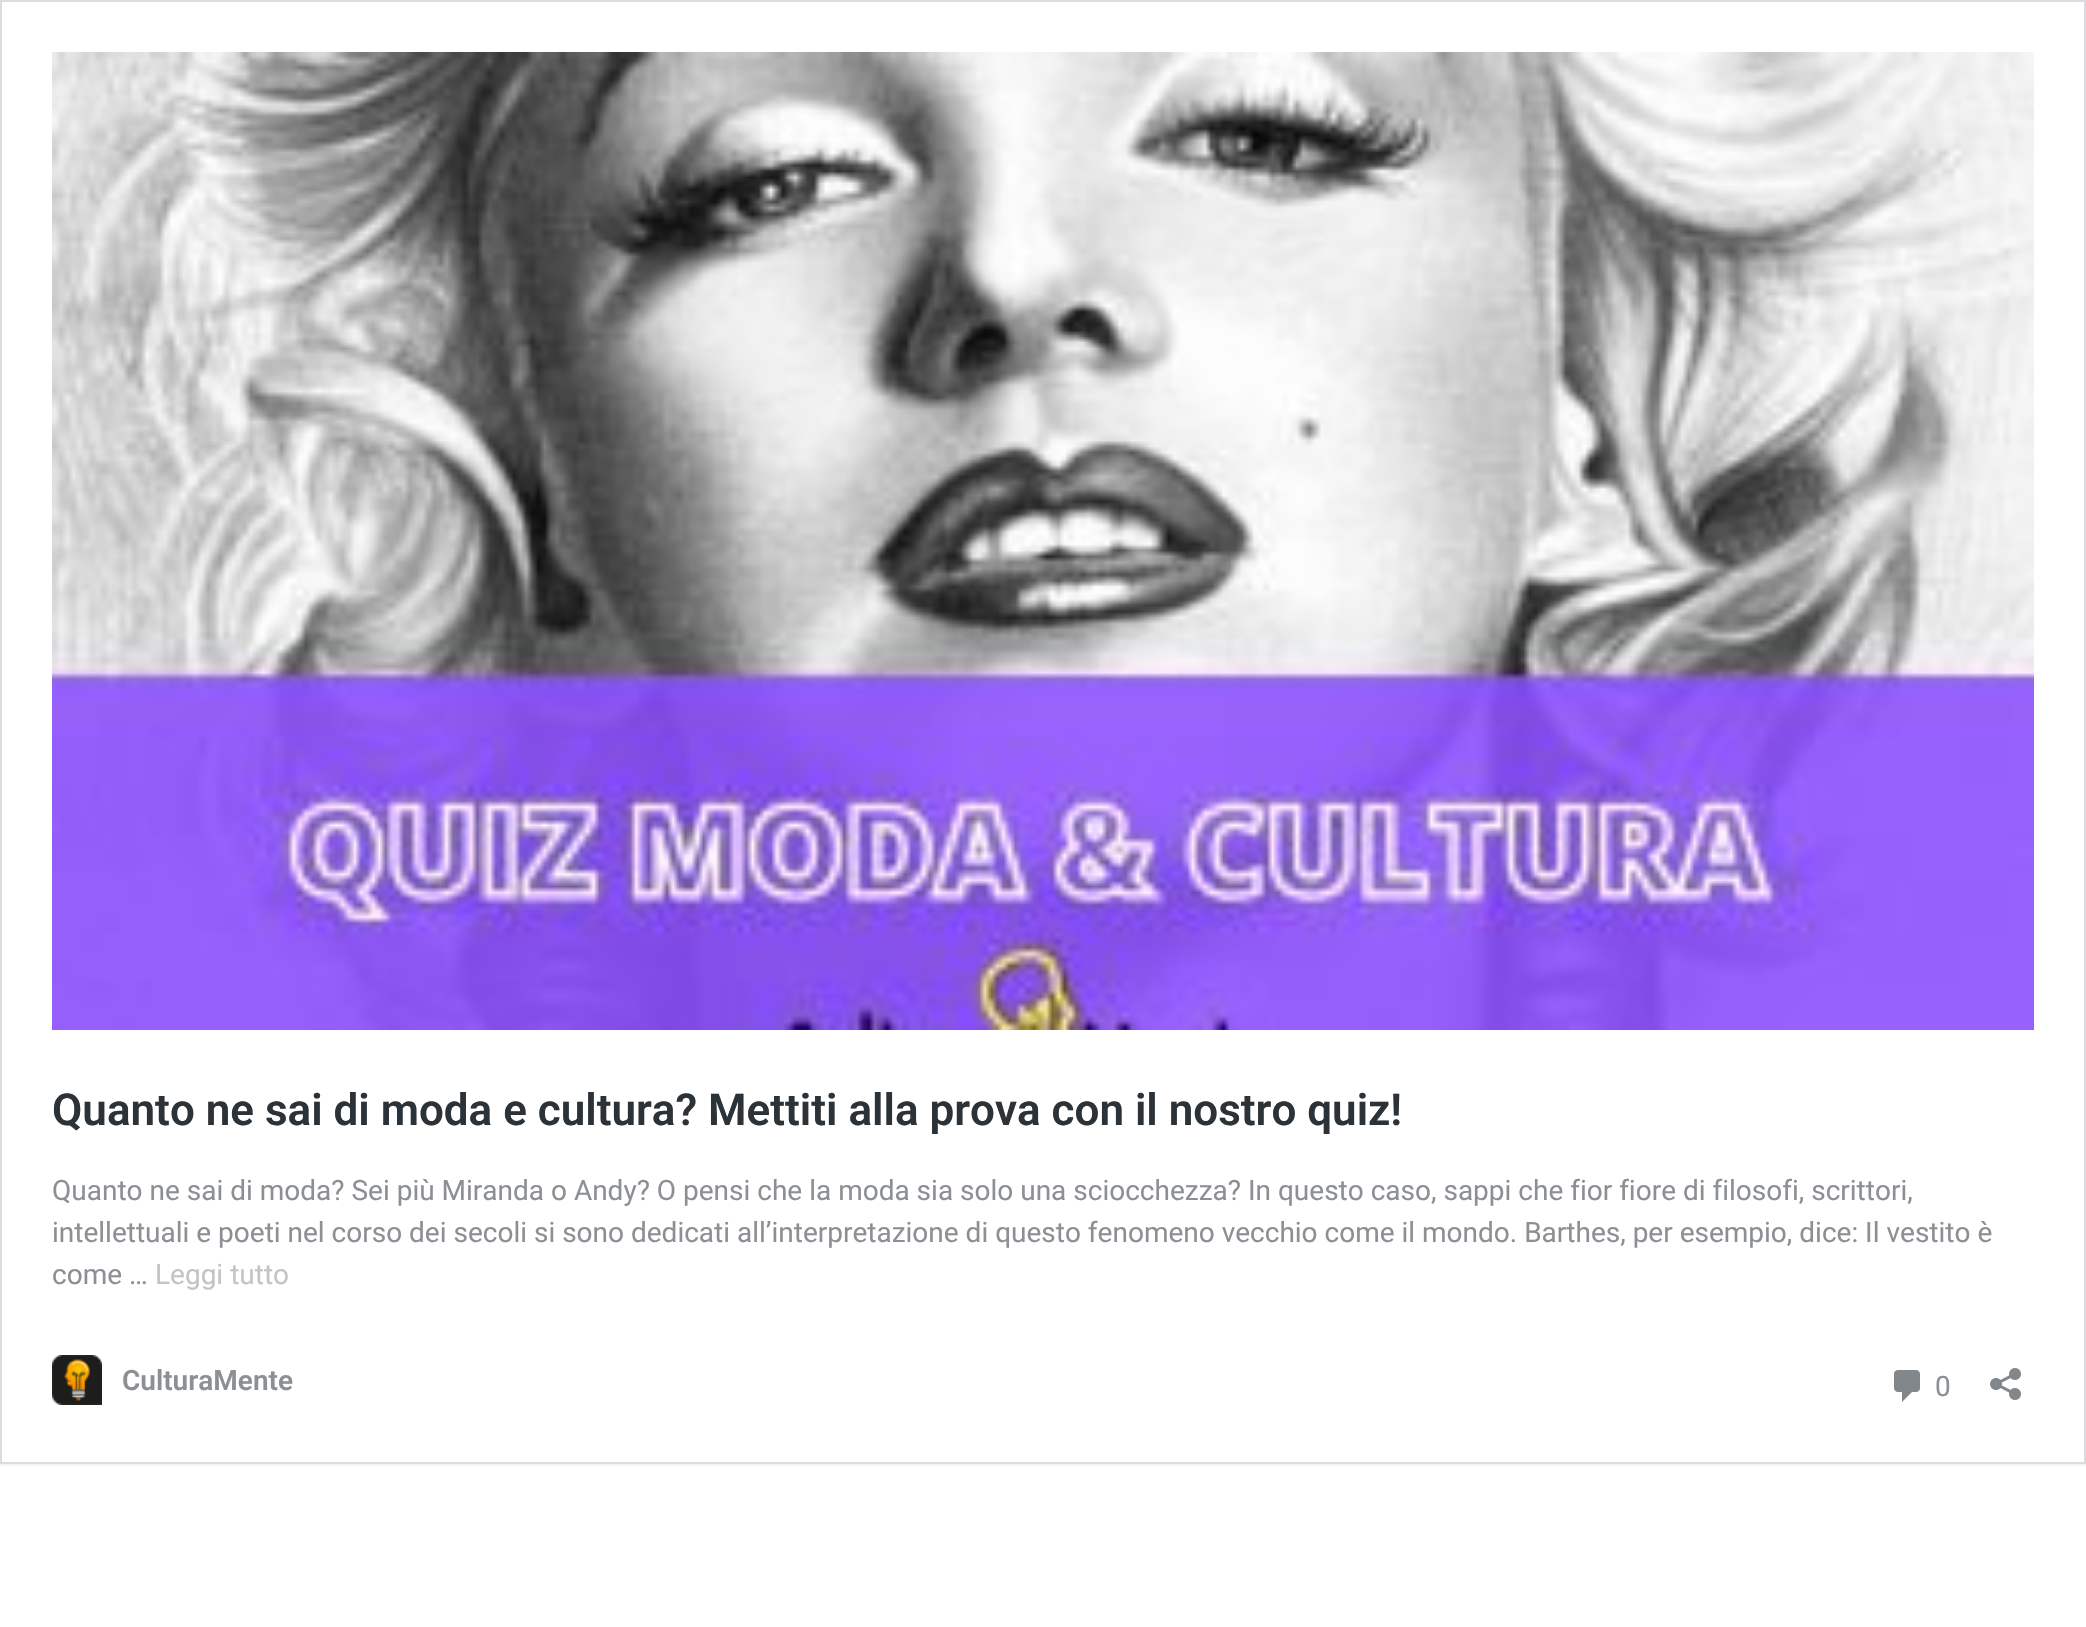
void draw(SkCanvas* canvas) {
  SkPaint paint;
  paint.setAntiAlias(true);
  auto face = [&](const char* family, int weight, float size, bool italic = false) {
    SkFontStyle style(weight, SkFontStyle::kNormal_Width,
      italic ? SkFontStyle::kItalic_Slant : SkFontStyle::kUpright_Slant);
    SkFont result(fontMgr->matchFamilyStyle(family, style), size);
    result.setSubpixel(true);
    return result;
  };
  auto paste = [&](const char* path, float x, float y, float w, float h) {
    auto image = SkImages::DeferredFromEncodedData(SkData::MakeFromFileName(path));
    canvas->drawImageRect(image, SkRect::MakeXYWH(x, y, w, h), SkSamplingOptions());
  };
  canvas->clear(0xffffffff);
  canvas->save();
  canvas->clipRect(SkRect::MakeXYWH(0, 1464, 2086, 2));
  paint.setColor(0x0d000000);
  paint.setMaskFilter(SkMaskFilter::MakeBlur(kNormal_SkBlurStyle, 1));
  canvas->drawRect(SkRect::MakeXYWH(0, 2, 2086, 1464), paint);
  paint.setMaskFilter(nullptr);
  canvas->restore();
  paint.setStroke(true);
  paint.setStrokeWidth(2);
  paint.setColor(0xffdcdcde);
  canvas->drawRect(SkRect::MakeXYWH(1, 1, 2084, 1462), paint);
  paste("img/1.png", 52, 52, 1982, 978);
  paste("img/2.png", 52, 1355, 50, 50);
  paste("img/3.png", 1894, 1370, 26, 32);
  paste("img/4.png", 1990, 1368, 31, 32);
  auto f0 = face("Roboto", 600, 44);
  paint.setStroke(false);
  paint.setColor(0xff2c3338);
  canvas->drawString("Quanto ne sai di moda e cultura? Mettiti alla prova con il nostro quiz!", 52, 1125, f0, paint);
  auto f1 = face("Roboto", 400, 28);
  paint.setColor(0xff8c8f94);
  {
    const struct { const char* s; float x, y; } items[] = {
      {"Quanto ne sai di moda? Sei più Miranda o Andy? O pensi che la moda sia solo una sciocchezza? In questo caso, sappi che fior fiore di filosofi, scrittori,", 52, 1200},
      {"intellettuali e poeti nel corso dei secoli si sono dedicati all’interpretazione di questo fenomeno vecchio come il mondo. Barthes, per esempio, dice: Il vestito è", 52, 1242},
      {"come …", 52, 1284},
    };
    for (auto [s, x, y] : items) {
      canvas->drawString(s, x, y, f1, paint);
    }
  }
  paint.setColor(0xffc3c4c7);
  canvas->drawString("Leggi tutto", 155, 1284, f1, paint);
  auto f2 = face("Roboto", 600, 28);
  paint.setColor(0xff8c8f94);
  canvas->drawString("CulturaMente", 122, 1390, f2, paint);
  canvas->drawString("0", 1935, 1396, f1, paint);
}
